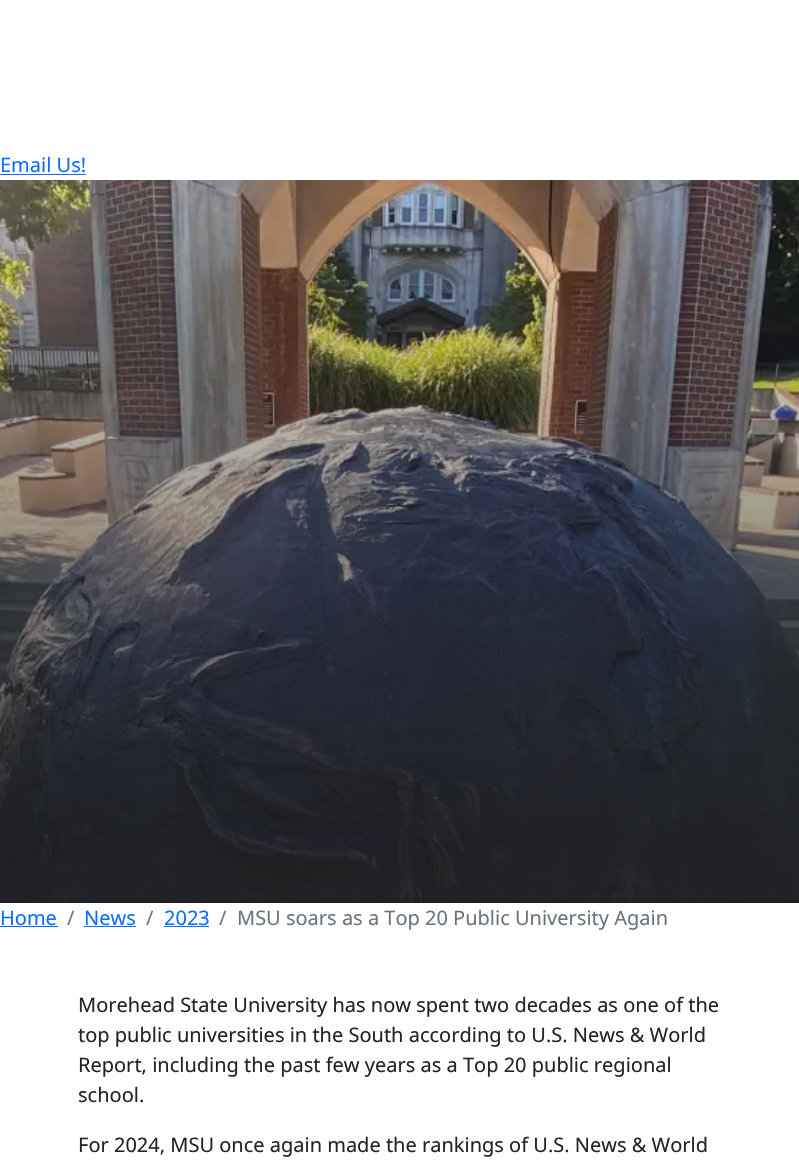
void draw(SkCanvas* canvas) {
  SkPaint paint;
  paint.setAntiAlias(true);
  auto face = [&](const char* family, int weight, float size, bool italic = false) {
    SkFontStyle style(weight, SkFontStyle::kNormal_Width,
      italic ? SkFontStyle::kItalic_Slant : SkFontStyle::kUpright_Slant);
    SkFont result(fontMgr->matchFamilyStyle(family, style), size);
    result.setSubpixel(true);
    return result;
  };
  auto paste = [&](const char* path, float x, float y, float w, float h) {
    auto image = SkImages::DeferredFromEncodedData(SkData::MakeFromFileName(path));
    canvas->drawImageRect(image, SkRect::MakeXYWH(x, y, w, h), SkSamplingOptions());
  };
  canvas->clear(0xffffffff);
  paint.setColor(0xff0d6efd);
  canvas->drawRect(SkRect::MakeXYWH(0, 174, 86, 1), paint);
  paint.setColor(0xff1b1c1e);
  canvas->drawRect(SkRect::MakeXYWH(0, 902, 799, 1), paint);
  paste("img/1.png", 0, 180, 799, 723);
  {
    const SkColor colors[] = {0x001b1c1e, 0xcc1b1c1e};
    const float stops[] = {0, 0.9f};
    const SkPoint ends[] = {{400, 180}, {400, 903}};
    paint.setShader(SkGradientShader::MakeLinear(ends, colors, stops, 2, SkTileMode::kClamp));
    paint.setAlpha(255);
  }
  canvas->drawRect(SkRect::MakeXYWH(0, 198, 799, 705), paint);
  paint.setShader(nullptr);
  {
    const struct { float x, y, w, h; SkColor color; } items[] = {
      {0, 926, 58, 1, 0xff0d6efd},
      {84, 926, 52, 1, 0xff0d6efd},
      {164, 926, 45, 1, 0xff0d6efd},
    };
    for (auto [x, y, w, h, color] : items) {
      paint.setColor(color);
      canvas->drawRect(SkRect::MakeXYWH(x, y, w, h), paint);
    }
  }
  auto f0 = face("Noto Sans", 400, 20);
  canvas->drawString("Email Us!", 0, 172, f0, paint);
  canvas->drawString("Home", 0, 925, f0, paint);
  paint.setColor(0xff6c757d);
  canvas->drawString("/", 67, 925, f0, paint);
  paint.setColor(0xff0d6efd);
  canvas->drawString("News", 84, 925, f0, paint);
  paint.setColor(0xff6c757d);
  canvas->drawString("/", 146, 925, f0, paint);
  paint.setColor(0xff0d6efd);
  canvas->drawString("2023", 164, 925, f0, paint);
  paint.setColor(0xff6c757d);
  canvas->drawString("/", 219, 925, f0, paint);
  canvas->drawString("MSU soars as a Top 20 Public University Again", 237, 925, f0, paint);
  paint.setColor(0xff212529);
  {
    const struct { const char* s; float x, y; } items[] = {
      {"Morehead State University has now spent two decades as one of the", 78, 1012},
      {"top public universities in the South according to U.S. News & World", 78, 1042},
      {"Report, including the past few years as a Top 20 public regional", 78, 1072},
      {"school.", 78, 1102},
      {"For 2024, MSU once again made the rankings of U.S. News & World", 78, 1152},
    };
    for (auto [s, x, y] : items) {
      canvas->drawString(s, x, y, f0, paint);
    }
  }
}
